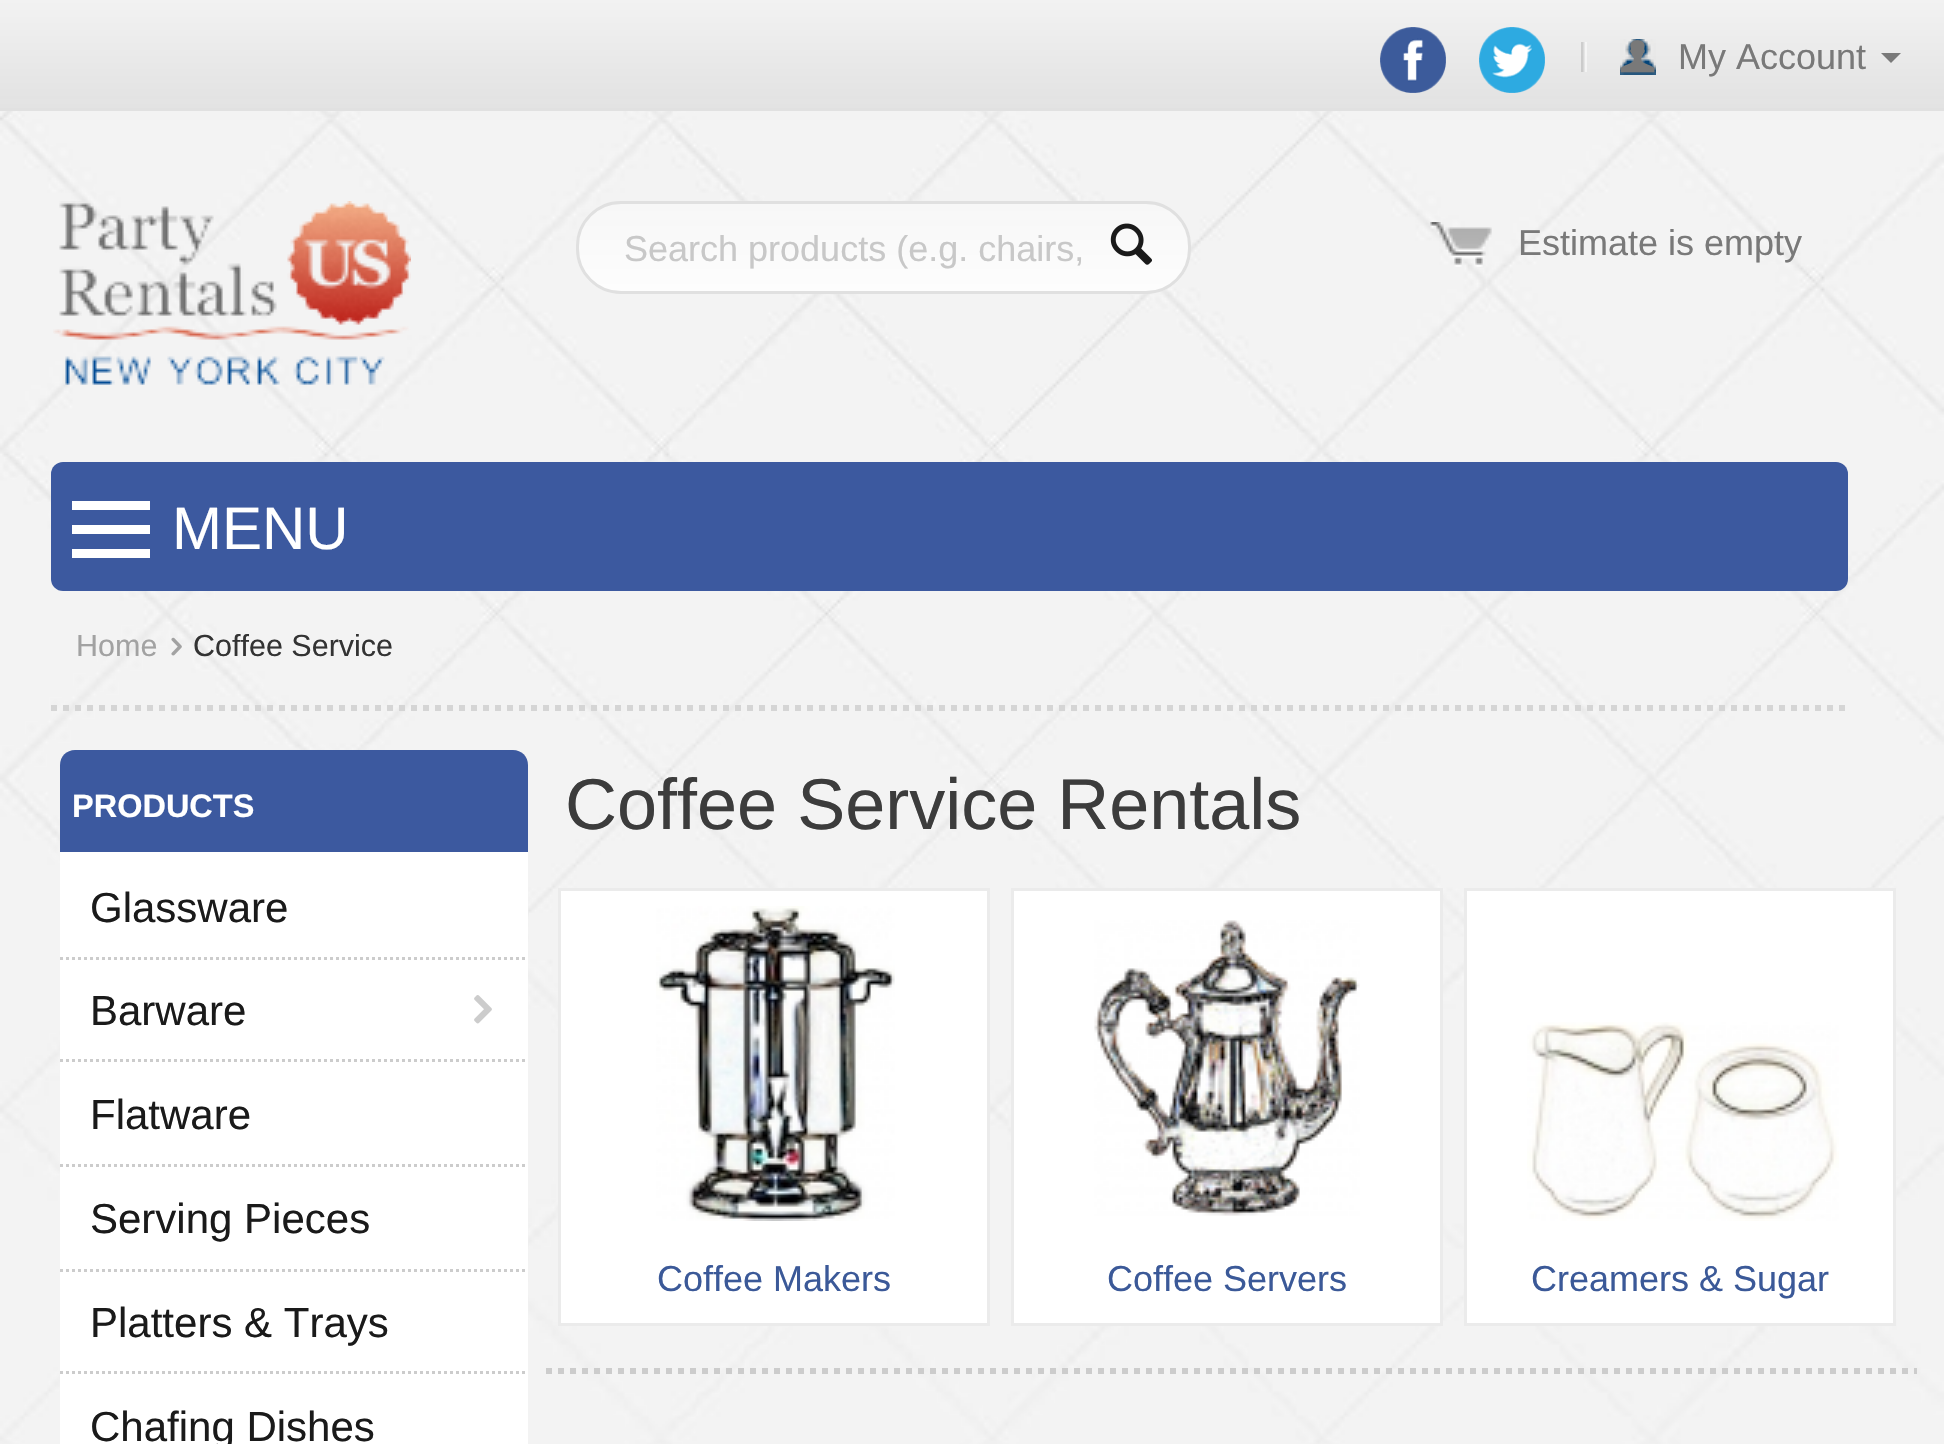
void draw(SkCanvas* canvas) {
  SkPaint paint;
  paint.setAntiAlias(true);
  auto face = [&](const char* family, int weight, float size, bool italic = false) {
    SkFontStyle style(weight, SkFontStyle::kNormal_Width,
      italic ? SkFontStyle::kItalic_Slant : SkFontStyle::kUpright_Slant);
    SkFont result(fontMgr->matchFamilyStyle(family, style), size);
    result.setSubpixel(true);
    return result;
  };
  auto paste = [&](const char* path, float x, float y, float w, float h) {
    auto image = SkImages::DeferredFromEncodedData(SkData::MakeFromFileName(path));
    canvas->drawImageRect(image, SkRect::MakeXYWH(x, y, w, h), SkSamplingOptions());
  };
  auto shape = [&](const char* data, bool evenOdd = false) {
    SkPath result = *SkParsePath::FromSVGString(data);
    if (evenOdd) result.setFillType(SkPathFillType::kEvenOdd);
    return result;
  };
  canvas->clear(0xffffffff);
  paste("img/1.png", 0, 111, 1944, 1333);
  {
    const SkColor colors[] = {0xfff2f2f2, 0xffe3e3e3};
    const float stops[] = {0, 1};
    const SkPoint ends[] = {{972, 0}, {972, 108}};
    paint.setShader(SkGradientShader::MakeLinear(ends, colors, stops, 2, SkTileMode::kClamp));
    paint.setAlpha(255);
  }
  canvas->drawRect(SkRect::MakeXYWH(0, 99, 1944, 9), paint);
  paint.setShader(nullptr);
  paint.setColor(0xffe1e1e1);
  canvas->drawRect(SkRect::MakeXYWH(0, 108, 1944, 3), paint);
  {
    const SkColor colors[] = {0xfff2f2f2, 0xffe3e3e3};
    const float stops[] = {0, 1};
    const SkPoint ends[] = {{972, 0}, {972, 99}};
    paint.setShader(SkGradientShader::MakeLinear(ends, colors, stops, 2, SkTileMode::kClamp));
    paint.setAlpha(255);
  }
  canvas->drawRect(SkRect::MakeXYWH(0, 0, 1944, 99), paint);
  paste("img/2.png", 1380, 27, 66, 66);
  paste("img/3.png", 1479, 27, 66, 66);
  paste("img/4.png", 1581, 42, 6, 30);
  paste("img/5.png", 1620, 39, 36, 36);
  paste("img/6.png", 1620, 40, 35, 33);
  paint.setShader(nullptr);
  paint.setColor(0xff797979);
  canvas->drawPath(shape("M1891 63L1881 53H1901Z"), paint);
  paste("img/7.png", 53, 201, 358, 184);
  canvas->save();
  canvas->clipPath(shape("M621 201H1146C1171 201 1191 221 1191 246V249C1191 274 1171 294 1146 294H621C596 294 576 274 576 249V246C576 221 596 201 621 201Z"), true);
  {
    const SkColor colors[] = {0xfff7f7f7, 0xfffdfdfd};
    const float stops[] = {0, 1};
    const SkPoint ends[] = {{884, 204}, {884, 291}};
    paint.setShader(SkGradientShader::MakeLinear(ends, colors, stops, 2, SkTileMode::kClamp));
    paint.setAlpha(255);
  }
  canvas->drawRect(SkRect::MakeXYWH(576, 204, 615, 87), paint);
  canvas->restore();
  paint.setStroke(true);
  paint.setStrokeWidth(3);
  paint.setShader(nullptr);
  paint.setColor(0xffe0e0e0);
  canvas->drawRoundRect(SkRect::MakeXYWH(577.5f, 202.5f, 612, 90), 43.5f, 43.5f, paint);
  paste("img/8.png", 1110, 223, 42, 42);
  paste("img/9.png", 1430, 222, 62, 45);
  paint.setStroke(false);
  paint.setColor(0xff3c599f);
  canvas->drawRoundRect(SkRect::MakeXYWH(51, 462, 1797, 129), 12, 12, paint);
  {
    const struct { float x, y, w, h; SkColor color; } items[] = {
      {72, 501, 78, 9, 0xffffffff},
      {72, 525, 78, 9, 0xffffffff},
      {72, 549, 78, 9, 0xffffffff},
    };
    for (auto [x, y, w, h, color] : items) {
      paint.setColor(color);
      canvas->drawRect(SkRect::MakeXYWH(x, y, w, h), paint);
    }
  }
  paint.setStroke(true);
  paint.setStrokeWidth(6);
  paint.setColor(0xffd5d5d5);
  paint.setPathEffect(SkDashPathEffect::Make({{6, 6}}, 0));
  canvas->drawPath(shape("M51 708H1848"), paint);
  paint.setPathEffect(nullptr);
  paste("img/10.png", 171, 637, 11, 19);
  paint.setStroke(false);
  paint.setColor(0xff3c599f);
  canvas->drawPath(shape("M75 750H513C521.5 750 528 756.5 528 765V852H60V765C60 756.5 66.5 750 75 750Z"), paint);
  paint.setColor(0xffffffff);
  canvas->drawRect(SkRect::MakeXYWH(60, 852, 468, 592), paint);
  paint.setStroke(true);
  paint.setStrokeWidth(3);
  paint.setColor(0xffcccccc);
  paint.setPathEffect(SkDashPathEffect::Make({{3, 3}}, 0));
  canvas->drawPath(shape("M60 958.5H528"), paint);
  paint.setPathEffect(nullptr);
  paint.setPathEffect(SkDashPathEffect::Make({{3, 3}}, 0));
  canvas->drawPath(shape("M60 1060.5H528"), paint);
  paint.setPathEffect(nullptr);
  paste("img/11.png", 474, 995, 18, 29);
  paint.setPathEffect(SkDashPathEffect::Make({{3, 3}}, 0));
  canvas->drawPath(shape("M60 1165.5H528"), paint);
  paint.setPathEffect(nullptr);
  paint.setPathEffect(SkDashPathEffect::Make({{3, 3}}, 0));
  canvas->drawPath(shape("M60 1270.5H528"), paint);
  paint.setPathEffect(nullptr);
  paint.setPathEffect(SkDashPathEffect::Make({{3, 3}}, 0));
  canvas->drawPath(shape("M60 1372.5H528"), paint);
  paint.setPathEffect(nullptr);
  paint.setStrokeWidth(6);
  paint.setPathEffect(SkDashPathEffect::Make({{6, 6}}, 0));
  canvas->drawPath(shape("M546 1371H1917"), paint);
  paint.setPathEffect(nullptr);
  paint.setStroke(false);
  paint.setColor(0xffffffff);
  canvas->drawRect(SkRect::MakeXYWH(559.5f, 889.5f, 429, 435), paint);
  paint.setStroke(true);
  paint.setStrokeWidth(3);
  paint.setColor(0xffebebeb);
  canvas->drawRect(SkRect::MakeXYWH(559.5f, 889.5f, 429, 435), paint);
  paste("img/12.png", 656, 906, 239, 315);
  paint.setStroke(false);
  paint.setColor(0xffffffff);
  canvas->drawRect(SkRect::MakeXYWH(1012.5f, 889.5f, 429, 435), paint);
  paint.setStroke(true);
  paint.setColor(0xffebebeb);
  canvas->drawRect(SkRect::MakeXYWH(1012.5f, 889.5f, 429, 435), paint);
  paste("img/13.png", 1094, 920, 266, 296);
  paint.setStroke(false);
  paint.setColor(0xffffffff);
  canvas->drawRect(SkRect::MakeXYWH(1465.5f, 889.5f, 429, 435), paint);
  paint.setStroke(true);
  paint.setColor(0xffebebeb);
  canvas->drawRect(SkRect::MakeXYWH(1465.5f, 889.5f, 429, 435), paint);
  paste("img/14.png", 1527, 1022, 312, 199);
  auto f0 = face("Liberation Sans", 400, 36);
  paint.setStroke(false);
  paint.setColor(0xff797979);
  canvas->drawString("My Account", 1678, 69, f0, paint);
  paint.setColor(0xffc8c8c8);
  canvas->drawString("Search products (e.g. chairs,", 624, 261, f0, paint);
  paint.setColor(0xff797979);
  canvas->drawString("Estimate is empty", 1518, 255, f0, paint);
  auto f1 = face("Liberation Sans", 400, 60);
  paint.setColor(0xffffffff);
  canvas->drawString("MENU", 172, 549, f1, paint);
  auto f2 = face("Liberation Sans", 400, 30.5f);
  paint.setColor(0xffa2a2a2);
  canvas->drawString("Home", 76, 656, f2, paint);
  paint.setColor(0xff333333);
  canvas->drawString("Coffee Service", 193, 656, f2, paint);
  auto f3 = face("Liberation Sans", 700, 32.5f);
  paint.setColor(0xffffffff);
  canvas->drawString("PRODUCTS", 72, 817, f3, paint);
  auto f4 = face("Liberation Sans", 400, 42);
  paint.setColor(0xff1a1a1a);
  {
    const struct { const char* s; float x, y; } items[] = {
      {"Glassware", 90, 922},
      {"Barware", 90, 1025},
      {"Flatware", 90, 1129},
      {"Serving Pieces", 90, 1233},
      {"Platters & Trays", 90, 1337},
      {"Chafing Dishes", 90, 1441},
    };
    for (auto [s, x, y] : items) {
      canvas->drawString(s, x, y, f4, paint);
    }
  }
  auto f5 = face("Liberation Sans", 400, 72);
  paint.setColor(0xff3c3c3c);
  canvas->drawString("Coffee Service Rentals", 565, 829, f5, paint);
  paint.setColor(0xff3b5998);
  {
    const struct { const char* s; float x, y; } items[] = {
      {"Coffee Makers", 657, 1291},
      {"Coffee Servers", 1107, 1291},
      {"Creamers & Sugar", 1531, 1291},
    };
    for (auto [s, x, y] : items) {
      canvas->drawString(s, x, y, f0, paint);
    }
  }
}
